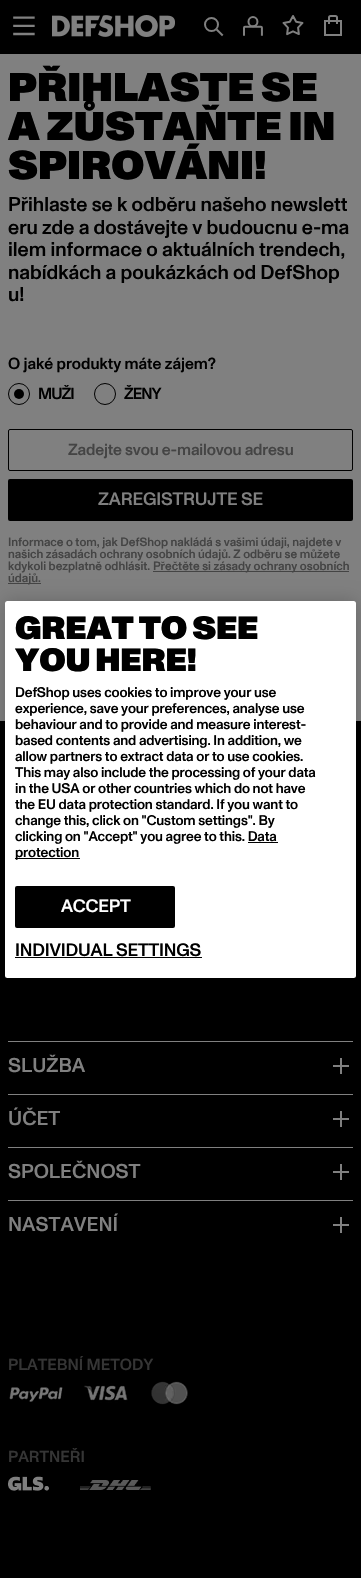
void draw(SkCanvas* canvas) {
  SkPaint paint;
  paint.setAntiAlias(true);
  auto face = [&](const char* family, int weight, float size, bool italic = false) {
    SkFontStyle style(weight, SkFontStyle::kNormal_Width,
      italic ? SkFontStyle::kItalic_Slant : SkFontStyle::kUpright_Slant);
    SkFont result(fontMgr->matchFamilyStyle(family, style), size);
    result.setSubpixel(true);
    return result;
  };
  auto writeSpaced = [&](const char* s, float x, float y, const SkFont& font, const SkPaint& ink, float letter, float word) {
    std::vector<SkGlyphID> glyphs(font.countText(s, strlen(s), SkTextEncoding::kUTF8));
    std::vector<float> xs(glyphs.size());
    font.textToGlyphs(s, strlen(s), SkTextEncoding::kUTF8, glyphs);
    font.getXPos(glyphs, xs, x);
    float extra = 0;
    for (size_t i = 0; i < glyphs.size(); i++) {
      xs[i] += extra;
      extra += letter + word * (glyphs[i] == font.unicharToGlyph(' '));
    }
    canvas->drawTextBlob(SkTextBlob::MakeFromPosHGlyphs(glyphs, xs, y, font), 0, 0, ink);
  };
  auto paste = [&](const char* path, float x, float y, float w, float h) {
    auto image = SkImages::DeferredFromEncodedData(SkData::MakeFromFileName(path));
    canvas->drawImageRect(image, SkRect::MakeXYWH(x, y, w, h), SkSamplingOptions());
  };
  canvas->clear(0xff808080);
  paint.setColor(0xff000000);
  canvas->drawRect(SkRect::MakeXYWH(0, 0, 361, 54), paint);
  paste("img/1.png", 13, 16, 22, 20);
  paste("img/2.png", 52, 15, 123, 22);
  paste("img/3.png", 204, 17, 20, 20);
  paste("img/4.png", 243, 16, 20, 20);
  paste("img/5.png", 282, 15, 22, 21);
  paste("img/6.png", 324, 15, 18, 21);
  paint.setStroke(true);
  paint.setStrokeWidth(1);
  canvas->drawCircle(19, 394, 10.5f, paint);
  paint.setStroke(false);
  canvas->drawCircle(19, 394, 5, paint);
  paint.setStroke(true);
  canvas->drawCircle(105, 394, 10.5f, paint);
  canvas->drawRoundRect(SkRect::MakeXYWH(8.5f, 429.5f, 344, 41), 1.5f, 1.5f, paint);
  paint.setStroke(false);
  canvas->drawRoundRect(SkRect::MakeXYWH(8, 479, 345, 42), 2, 2, paint);
  {
    const struct { float x, y, w, h; SkColor color; } items[] = {
      {153, 571, 196, 1, 0xff444444},
      {8, 583, 33, 1, 0xff444444},
      {0, 721, 361, 857, 0xff000000},
      {8, 1041, 345, 1, 0xff808080},
    };
    for (auto [x, y, w, h, color] : items) {
      paint.setColor(color);
      canvas->drawRect(SkRect::MakeXYWH(x, y, w, h), paint);
    }
  }
  paste("img/7.png", 333, 1058, 16, 16);
  canvas->drawRect(SkRect::MakeXYWH(8, 1094, 345, 1), paint);
  paste("img/7.png", 333, 1111, 16, 16);
  canvas->drawRect(SkRect::MakeXYWH(8, 1147, 345, 1), paint);
  paste("img/7.png", 333, 1164, 16, 16);
  canvas->drawRect(SkRect::MakeXYWH(8, 1200, 345, 1), paint);
  paste("img/7.png", 333, 1217, 16, 16);
  paste("img/8.png", 9, 1381, 179, 24);
  paste("img/9.png", 8, 1476, 143, 15);
  paint.setColor(0x33000000);
  paint.setMaskFilter(SkMaskFilter::MakeBlur(kNormal_SkBlurStyle, 9));
  canvas->drawRoundRect(SkRect::MakeXYWH(5, 601, 351, 377), 2.5f, 2.5f, paint);
  paint.setMaskFilter(nullptr);
  paint.setColor(0xffffffff);
  canvas->drawRoundRect(SkRect::MakeXYWH(5, 601, 351, 377), 2.5f, 2.5f, paint);
  paint.setColor(0xff000000);
  canvas->drawRect(SkRect::MakeXYWH(248, 842, 30, 1), paint);
  canvas->drawRect(SkRect::MakeXYWH(15, 858, 65, 1), paint);
  canvas->drawRoundRect(SkRect::MakeXYWH(15, 886, 160, 42), 2, 2, paint);
  canvas->drawRect(SkRect::MakeXYWH(15, 957, 187, 1), paint);
  auto f0 = face("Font", 900, 40);
  {
    const struct { const char* s; float x, y; } items[] = {
      {"PŘIHLASTE SE", 8, 101},
      {"A ZŮSTAŇTE IN", 8, 140},
      {"SPIROVÁNI!", 8, 179},
    };
    for (auto [s, x, y] : items) {
      canvas->drawString(s, x, y, f0, paint);
    }
  }
  auto f1 = face("Font", 500, 20);
  {
    const struct { const char* s; float x, y; } items[] = {
      {"Přihlaste se k odběru našeho newslett", 8, 211},
      {"eru zde a dostávejte v budoucnu e-ma", 8, 234},
      {"ilem informace o aktuálních trendech,", 8, 256},
      {"nabídkách a poukázkách od DefShop", 8, 279},
      {"u!", 8, 301},
    };
    for (auto [s, x, y] : items) {
      canvas->drawString(s, x, y, f1, paint);
    }
  }
  auto f2 = face("Font", 500, 16);
  canvas->drawString("O jaké produkty máte zájem?", 8, 369, f2, paint);
  writeSpaced("MUŽI", 38, 399, f2, paint, -1, 0);
  writeSpaced("ŽENY", 124, 399, f2, paint, -1, 0);
  paint.setColor(0xff444444);
  writeSpaced("Zadejte svou e-mailovou adresu", 68, 455, f2, paint, -0.15f, 0);
  auto f3 = face("Font", 500, 18);
  paint.setColor(0xff808080);
  writeSpaced("ZAREGISTRUJTE SE", 98, 505, f3, paint, -0.2f, 0);
  auto f4 = face("Font", 500, 12);
  paint.setColor(0xff444444);
  {
    const struct { const char* s; float x, y; } items[] = {
      {"Informace o tom, jak DefShop nakládá s vašimi údaji, najdete v", 8, 546},
      {"našich zásadách ochrany osobních údajů. Z odběru se můžete", 8, 558},
      {"kdykoli bezplatně odhlásit.", 8, 570},
      {"Přečtěte si zásady ochrany osobních", 153, 570},
      {"údajů.", 8, 582},
    };
    for (auto [s, x, y] : items) {
      canvas->drawString(s, x, y, f4, paint);
    }
  }
  paint.setColor(0xff808080);
  {
    const struct { const char* s; float x, y; } items[] = {
      {"SLUŽBA", 8, 1072},
      {"ÚČET", 8, 1125},
      {"SPOLEČNOST", 8, 1178},
      {"NASTAVENÍ", 8, 1231},
    };
    for (auto [s, x, y] : items) {
      canvas->drawString(s, x, y, f1, paint);
    }
  }
  paint.setColor(0xff353535);
  canvas->drawString("PLATEBNÍ METODY", 8, 1370, f2, paint);
  canvas->drawString("PARTNEŘI", 8, 1462, f2, paint);
  auto f5 = face("Font", 900, 32);
  paint.setColor(0xff000000);
  writeSpaced("GREAT TO SEE", 15, 639, f5, paint, -0.25f, 0);
  writeSpaced("YOU HERE!", 15, 671, f5, paint, -0.25f, 0);
  auto f6 = face("Font", 500, 14);
  {
    const struct { const char* s; float x, y; } items[] = {
      {"DefShop uses cookies to improve your use", 15, 697},
      {"experience, save your preferences, analyse use", 15, 713},
      {"behaviour and to provide and measure interest-", 15, 729},
      {"based contents and advertising. In addition, we", 15, 745},
      {"allow partners to extract data or to use cookies.", 15, 761},
      {"This may also include the processing of your data", 15, 777},
      {"in the USA or other countries which do not have", 15, 793},
      {"the EU data protection standard. If you want to", 15, 809},
      {"change this, click on \"Custom settings\". By", 15, 825},
      {"clicking on \"Accept\" you agree to this. Data", 15, 841},
      {"protection", 15, 857},
    };
    for (auto [s, x, y] : items) {
      writeSpaced(s, x, y, f6, paint, -0.15f, 0);
    }
  }
  paint.setColor(0xffffffff);
  writeSpaced("ACCEPT", 61, 912, f3, paint, -0.2f, 0);
  paint.setColor(0xff000000);
  writeSpaced("INDIVIDUAL SETTINGS", 15, 956, f3, paint, -0.2f, 0);
}
